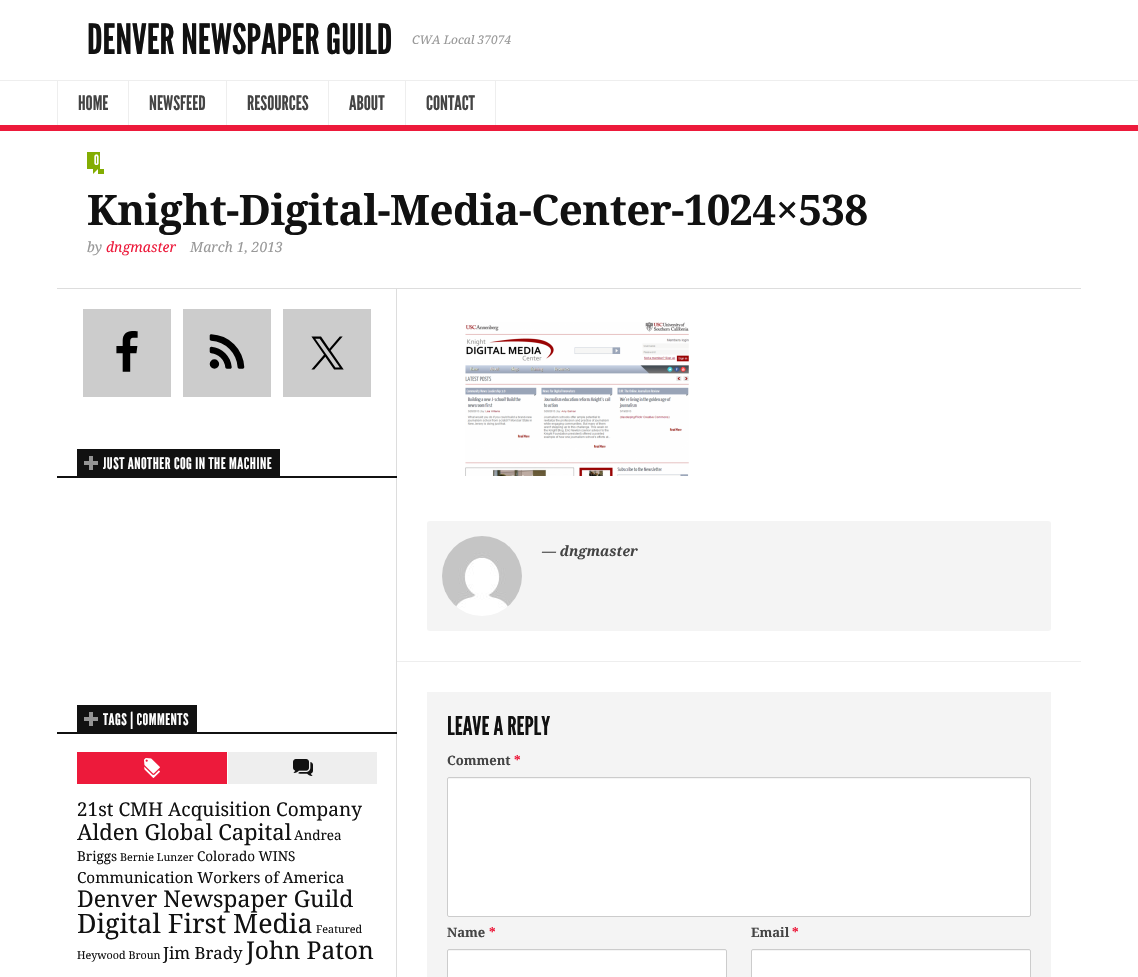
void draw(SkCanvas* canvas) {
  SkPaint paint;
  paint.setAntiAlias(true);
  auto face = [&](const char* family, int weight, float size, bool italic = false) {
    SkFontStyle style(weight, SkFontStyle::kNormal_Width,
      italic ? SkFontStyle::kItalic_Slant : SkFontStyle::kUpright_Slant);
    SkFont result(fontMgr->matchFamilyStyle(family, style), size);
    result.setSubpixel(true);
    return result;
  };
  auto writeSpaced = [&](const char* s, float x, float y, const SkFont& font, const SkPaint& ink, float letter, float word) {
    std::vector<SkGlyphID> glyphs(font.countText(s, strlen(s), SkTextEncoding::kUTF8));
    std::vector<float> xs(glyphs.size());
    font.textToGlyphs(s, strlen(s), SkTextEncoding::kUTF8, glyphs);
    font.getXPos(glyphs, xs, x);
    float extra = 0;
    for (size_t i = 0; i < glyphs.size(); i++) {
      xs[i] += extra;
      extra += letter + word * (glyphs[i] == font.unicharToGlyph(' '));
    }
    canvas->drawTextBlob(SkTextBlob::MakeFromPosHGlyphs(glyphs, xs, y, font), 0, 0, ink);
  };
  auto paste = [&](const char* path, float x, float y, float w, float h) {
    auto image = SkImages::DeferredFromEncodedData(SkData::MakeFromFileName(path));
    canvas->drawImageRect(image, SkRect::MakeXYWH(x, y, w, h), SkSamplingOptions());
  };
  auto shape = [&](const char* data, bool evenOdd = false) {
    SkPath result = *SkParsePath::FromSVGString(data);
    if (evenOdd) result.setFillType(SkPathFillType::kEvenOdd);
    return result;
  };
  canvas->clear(0xffffffff);
  {
    const struct { float x, y, w, h; SkColor color; } items[] = {
      {0, 80, 1138, 1, 0xffeeeeee},
      {57, 81, 1, 44, 0xffeeeeee},
      {128, 81, 1, 44, 0xffeeeeee},
      {226, 81, 1, 44, 0xffeeeeee},
      {328, 81, 1, 44, 0xffeeeeee},
      {405, 81, 1, 44, 0xffeeeeee},
      {495, 81, 1, 44, 0xffeeeeee},
      {0, 125, 1138, 6, 0xffed1a3b},
      {57, 288, 1024, 1, 0xffdddddd},
      {87, 152, 13, 17, 0xff83ad02},
      {93, 169, 11, 5, 0xff83ad02},
    };
    for (auto [x, y, w, h, color] : items) {
      paint.setColor(color);
      canvas->drawRect(SkRect::MakeXYWH(x, y, w, h), paint);
    }
  }
  paste("img/1.png", 93, 169, 5, 5);
  paint.setColor(0xffdddddd);
  canvas->drawRect(SkRect::MakeXYWH(396, 289, 1, 688), paint);
  paint.setColor(0xffcccccc);
  canvas->drawRect(SkRect::MakeXYWH(83, 309, 88, 88), paint);
  paste("img/2.png", 116, 331, 22, 41);
  canvas->drawRect(SkRect::MakeXYWH(183, 309, 88, 88), paint);
  paste("img/3.png", 209, 334, 36, 35);
  canvas->drawRect(SkRect::MakeXYWH(283, 309, 88, 88), paint);
  paste("img/4.png", 311, 336, 33, 34);
  paint.setColor(0xff111111);
  canvas->drawRect(SkRect::MakeXYWH(57, 476, 340, 2), paint);
  canvas->drawRect(SkRect::MakeXYWH(77, 449, 203, 27), paint);
  paste("img/5.png", 84, 456, 14, 14);
  canvas->drawRect(SkRect::MakeXYWH(57, 732, 340, 2), paint);
  canvas->drawRect(SkRect::MakeXYWH(77, 705, 120, 27), paint);
  paste("img/5.png", 84, 712, 14, 14);
  paint.setColor(0xffed1a3b);
  canvas->drawRect(SkRect::MakeXYWH(77, 752, 150, 32), paint);
  paste("img/6.png", 144, 758, 16, 20);
  paint.setColor(0xffeeeeee);
  canvas->drawRect(SkRect::MakeXYWH(228, 752, 149, 32), paint);
  paste("img/7.png", 293, 759, 20, 17);
  canvas->drawRect(SkRect::MakeXYWH(397, 661, 684, 1), paint);
  paste("img/8.png", 465, 322, 224, 154);
  paint.setColor(0xfff4f4f4);
  canvas->drawRoundRect(SkRect::MakeXYWH(427, 521, 624, 110), 3, 3, paint);
  paste("img/9.png", 442, 536, 80, 80);
  canvas->drawRect(SkRect::MakeXYWH(427, 692, 624, 285), paint);
  paint.setColor(0xffffffff);
  canvas->drawRoundRect(SkRect::MakeXYWH(447, 777, 584, 140), 2, 2, paint);
  paint.setColor(0xfff5f5f5);
  canvas->drawPath(shape("M449 779H1029C1030 779 1030 779 1030 780C1030 779 1030 778 1029 778H448V780C448 779 448 779 449 779Z"), paint);
  paint.setStroke(true);
  paint.setStrokeWidth(1);
  paint.setColor(0xffcccccc);
  canvas->drawRoundRect(SkRect::MakeXYWH(447.5f, 777.5f, 583, 139), 1.5f, 1.5f, paint);
  paint.setStroke(false);
  paint.setColor(0xffffffff);
  canvas->drawRoundRect(SkRect::MakeXYWH(447, 949, 280, 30), 2, 2, paint);
  paint.setColor(0xfff5f5f5);
  canvas->drawPath(shape("M449 951H725C726 951 726 951 726 952C726 951 726 950 725 950H449H448V952C448 951 448 951 449 951Z"), paint);
  paint.setStroke(true);
  paint.setColor(0xffcccccc);
  canvas->drawRoundRect(SkRect::MakeXYWH(447.5f, 949.5f, 279, 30), 1.5f, 1.5f, paint);
  paint.setStroke(false);
  paint.setColor(0xffffffff);
  canvas->drawRoundRect(SkRect::MakeXYWH(751, 949, 280, 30), 2, 2, paint);
  paint.setColor(0xfff5f5f5);
  canvas->drawPath(shape("M753 951H1029C1030 951 1030 951 1030 952C1030 951 1030 950 1029 950H753H752V952C752 951 752 951 753 951Z"), paint);
  paint.setStroke(true);
  paint.setColor(0xffcccccc);
  canvas->drawRoundRect(SkRect::MakeXYWH(751.5f, 949.5f, 279, 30), 1.5f, 1.5f, paint);
  auto f0 = face("League Gothic", 400, 42);
  paint.setStroke(false);
  paint.setColor(0xff111111);
  canvas->drawString("DENVER NEWSPAPER GUILD", 87, 54, f0, paint);
  auto f1 = face("Droid Serif", 400, 12, true);
  paint.setColor(0xff999999);
  canvas->drawString("CWA Local 37074", 412, 44, f1, paint);
  auto f2 = face("League Gothic", 400, 20);
  paint.setColor(0xff444444);
  {
    const struct { const char* s; float x, y; } items[] = {
      {"HOME", 78, 110},
      {"NEWSFEED", 149, 110},
      {"RESOURCES", 247, 110},
      {"ABOUT", 349, 110},
      {"CONTACT", 426, 110},
    };
    for (auto [s, x, y] : items) {
      canvas->drawString(s, x, y, f2, paint);
    }
  }
  auto f3 = face("League Gothic", 400, 14);
  paint.setColor(0xffffffff);
  writeSpaced("0", 94, 165, f3, paint, 1, 0);
  auto f4 = face("Droid Serif", 700, 42);
  paint.setColor(0xff111111);
  writeSpaced("Knight-Digital-Media-Center-1024×538", 87, 225, f4, paint, -0.5f, 0);
  auto f5 = face("Droid Serif", 400, 14, true);
  paint.setColor(0xff999999);
  canvas->drawString("by", 87, 252, f5, paint);
  paint.setColor(0xffed1a3b);
  canvas->drawString("dngmaster", 106, 252, f5, paint);
  paint.setColor(0xff999999);
  canvas->drawString("March 1, 2013", 190, 252, f5, paint);
  auto f6 = face("League Gothic", 400, 16);
  paint.setColor(0xffffffff);
  writeSpaced("JUST ANOTHER COG IN THE MACHINE", 103, 469, f6, paint, 0.5f, 0);
  writeSpaced("TAGS | COMMENTS", 103, 725, f6, paint, 0.5f, 0);
  auto f7 = face("Droid Serif", 400, 19);
  paint.setColor(0xff111111);
  canvas->drawString("21st CMH Acquisition Company", 77, 816, f7, paint);
  auto f8 = face("Droid Serif", 400, 22);
  canvas->drawString("Alden Global Capital", 77, 840, f8, paint);
  auto f9 = face("Droid Serif", 400, 13.5f);
  canvas->drawString("Andrea", 294, 840, f9, paint);
  canvas->drawString("Briggs", 77, 861, f9, paint);
  auto f10 = face("Droid Serif", 400, 10.75f);
  canvas->drawString("Bernie Lunzer", 120, 861, f10, paint);
  canvas->drawString("Colorado WINS", 197, 861, f9, paint);
  auto f11 = face("Droid Serif", 400, 15.25f);
  canvas->drawString("Communication Workers of America", 77, 883, f11, paint);
  auto f12 = face("Droid Serif", 400, 23);
  canvas->drawString("Denver Newspaper Guild", 77, 907, f12, paint);
  auto f13 = face("Droid Serif", 400, 26.75f);
  canvas->drawString("Digital First Media", 77, 933, f13, paint);
  canvas->drawString("Featured", 316, 933, f10, paint);
  canvas->drawString("Heywood Broun", 77, 959, f10, paint);
  auto f14 = face("Droid Serif", 400, 16.75f);
  canvas->drawString("Jim Brady", 163, 959, f14, paint);
  auto f15 = face("Droid Serif", 400, 24.5f);
  canvas->drawString("John Paton", 246, 959, f15, paint);
  auto f16 = face("Droid Serif", 700, 14, true);
  paint.setColor(0xff444444);
  canvas->drawString("— dngmaster", 542, 556, f16, paint);
  auto f17 = face("League Gothic", 400, 26);
  paint.setColor(0xff111111);
  canvas->drawString("LEAVE A REPLY", 447, 735, f17, paint);
  auto f18 = face("Droid Serif", 700, 13);
  paint.setColor(0xff444444);
  canvas->drawString("Comment", 447, 765, f18, paint);
  paint.setColor(0xffed1a3b);
  canvas->drawString("*", 514, 765, f18, paint);
  paint.setColor(0xff444444);
  canvas->drawString("Name", 447, 937, f18, paint);
  paint.setColor(0xffed1a3b);
  canvas->drawString("*", 489, 937, f18, paint);
  paint.setColor(0xff444444);
  canvas->drawString("Email", 751, 937, f18, paint);
  paint.setColor(0xffed1a3b);
  canvas->drawString("*", 792, 937, f18, paint);
}
